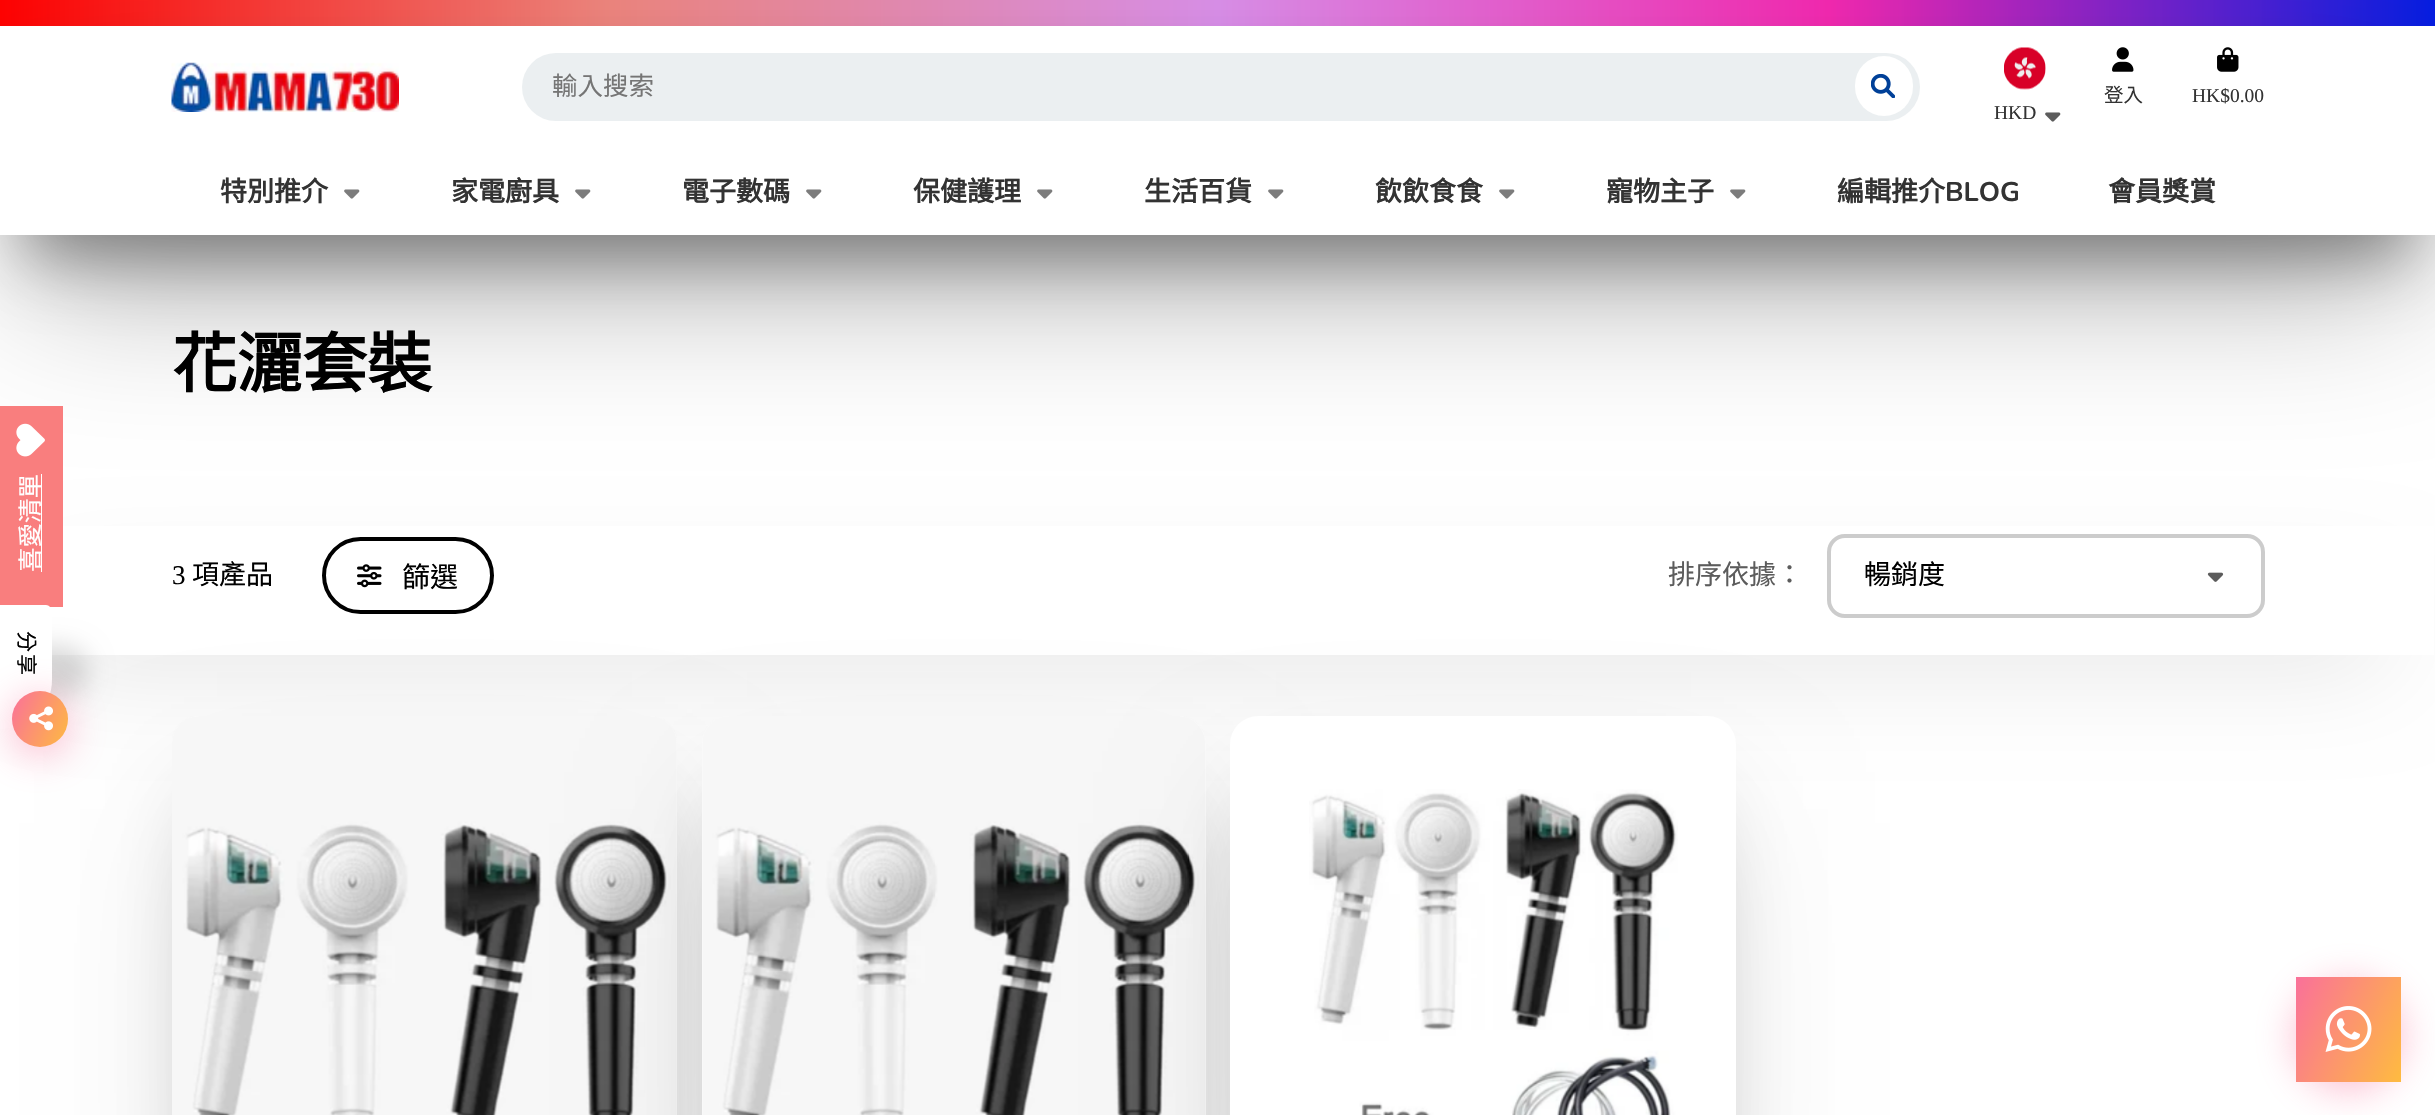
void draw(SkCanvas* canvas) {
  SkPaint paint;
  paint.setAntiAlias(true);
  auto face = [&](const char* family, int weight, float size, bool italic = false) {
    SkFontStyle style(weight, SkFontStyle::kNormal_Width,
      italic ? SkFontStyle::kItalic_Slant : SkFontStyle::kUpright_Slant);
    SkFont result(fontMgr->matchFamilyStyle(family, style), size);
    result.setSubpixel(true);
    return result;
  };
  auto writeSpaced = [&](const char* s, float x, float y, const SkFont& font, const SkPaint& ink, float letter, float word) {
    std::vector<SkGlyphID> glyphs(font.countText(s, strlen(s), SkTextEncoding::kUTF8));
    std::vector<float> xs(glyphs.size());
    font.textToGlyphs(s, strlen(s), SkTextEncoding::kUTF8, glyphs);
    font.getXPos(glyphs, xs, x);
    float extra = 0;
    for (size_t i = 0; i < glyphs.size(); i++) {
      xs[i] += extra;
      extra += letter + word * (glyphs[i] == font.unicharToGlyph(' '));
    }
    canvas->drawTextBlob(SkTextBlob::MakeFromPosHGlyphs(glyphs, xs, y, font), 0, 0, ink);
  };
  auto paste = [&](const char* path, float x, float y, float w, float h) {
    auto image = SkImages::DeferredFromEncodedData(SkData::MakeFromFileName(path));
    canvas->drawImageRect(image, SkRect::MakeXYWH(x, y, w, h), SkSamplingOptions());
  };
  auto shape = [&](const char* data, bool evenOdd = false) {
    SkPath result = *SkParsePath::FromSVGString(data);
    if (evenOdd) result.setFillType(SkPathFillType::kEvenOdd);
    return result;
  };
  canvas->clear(0xffffffff);
  paste("img/1.png", 0, 0, 2435, 26);
  paint.setColor(0x66000000);
  paint.setMaskFilter(SkMaskFilter::MakeBlur(kNormal_SkBlurStyle, 33.5f));
  canvas->drawRect(SkRect::MakeXYWH(25, 96, 2387, 160), paint);
  paint.setMaskFilter(nullptr);
  paint.setColor(0x4d000000);
  paint.setMaskFilter(SkMaskFilter::MakeBlur(kNormal_SkBlurStyle, 76.5f));
  canvas->drawRect(SkRect::MakeXYWH(25, 128, 2387, 159), paint);
  paint.setMaskFilter(nullptr);
  paint.setColor(0xffffffff);
  canvas->drawRect(SkRect::MakeXYWH(0, 26, 2435, 209), paint);
  paste("img/2.png", 171, 62, 228, 50);
  paint.setColor(0xffebeff1);
  canvas->drawRoundRect(SkRect::MakeXYWH(522, 53, 1398, 68), 34, 34, paint);
  paint.setColor(0xffffffff);
  canvas->drawRoundRect(SkRect::MakeXYWH(1855, 56, 58, 60), 29, 29, paint);
  paste("img/3.png", 1871, 74, 24, 24);
  paste("img/4.png", 2112, 47, 22, 25);
  paste("img/5.png", 2217, 47, 22, 25);
  paste("img/6.png", 2004, 47, 42, 43);
  paste("img/7.png", 2045, 112, 16, 10);
  paste("img/8.png", 344, 189, 16, 10);
  paste("img/8.png", 575, 189, 16, 10);
  paste("img/8.png", 806, 189, 16, 10);
  paste("img/8.png", 1037, 189, 16, 10);
  paste("img/8.png", 1268, 189, 16, 10);
  paste("img/8.png", 1499, 189, 16, 10);
  paste("img/8.png", 1730, 189, 16, 10);
  paint.setColor(0x26000000);
  paint.setMaskFilter(SkMaskFilter::MakeBlur(kNormal_SkBlurStyle, 52.5f));
  canvas->drawRect(SkRect::MakeXYWH(53, 602, 2331, 53), paint);
  paint.setMaskFilter(nullptr);
  paint.setColor(0xffffffff);
  canvas->drawRect(SkRect::MakeXYWH(50, 526, 2384, 129), paint);
  paint.setStroke(true);
  paint.setStrokeWidth(4);
  paint.setColor(0xff000000);
  canvas->drawRoundRect(SkRect::MakeXYWH(324, 539, 168, 73), 36.5f, 36.5f, paint);
  paint.setStroke(false);
  paint.setColor(0x1a000000);
  paint.setMaskFilter(SkMaskFilter::MakeBlur(kNormal_SkBlurStyle, 76.5f));
  canvas->drawRect(SkRect::MakeXYWH(203, 823, 445, 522), paint);
  paint.setMaskFilter(nullptr);
  paint.setColor(0xfff97e7e);
  canvas->drawRect(SkRect::MakeXYWH(0, 406, 63, 201), paint);
  paste("img/9.png", 16, 423, 29, 34);
  paint.setColor(0xffffffff);
  canvas->drawRect(SkRect::MakeXYWH(41, 474, 1, 98), paint);
  paste("img/10.png", 357, 564, 25, 24);
  paint.setStroke(true);
  paint.setColor(0xffcccccc);
  canvas->drawRoundRect(SkRect::MakeXYWH(1829, 536, 434, 80), 16, 16, paint);
  paste("img/11.png", 2207, 572, 17, 10);
  paint.setStroke(false);
  paint.setColor(0x4d000000);
  paint.setMaskFilter(SkMaskFilter::MakeBlur(kNormal_SkBlurStyle, 46));
  canvas->drawRect(SkRect::MakeXYWH(217, 809, 415, 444), paint);
  paint.setMaskFilter(nullptr);
  paint.setColor(0xffffffff);
  canvas->drawRoundRect(SkRect::MakeXYWH(172, 716, 505, 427), 28, 28, paint);
  paste("img/12.png", 172, 716, 505, 399);
  paint.setColor(0x4d000000);
  paint.setMaskFilter(SkMaskFilter::MakeBlur(kNormal_SkBlurStyle, 46));
  canvas->drawRect(SkRect::MakeXYWH(747, 809, 413, 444), paint);
  paint.setMaskFilter(nullptr);
  paint.setColor(0x1a000000);
  paint.setMaskFilter(SkMaskFilter::MakeBlur(kNormal_SkBlurStyle, 76.5f));
  canvas->drawRect(SkRect::MakeXYWH(733, 823, 443, 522), paint);
  paint.setMaskFilter(nullptr);
  paint.setColor(0xffffffff);
  canvas->drawRoundRect(SkRect::MakeXYWH(702, 716, 504, 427), 28, 28, paint);
  paste("img/13.png", 702, 716, 504, 399);
  paint.setColor(0x4d000000);
  paint.setMaskFilter(SkMaskFilter::MakeBlur(kNormal_SkBlurStyle, 46));
  canvas->drawRect(SkRect::MakeXYWH(1276, 809, 415, 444), paint);
  paint.setMaskFilter(nullptr);
  paint.setColor(0x1a000000);
  paint.setMaskFilter(SkMaskFilter::MakeBlur(kNormal_SkBlurStyle, 76.5f));
  canvas->drawRect(SkRect::MakeXYWH(1262, 823, 444, 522), paint);
  paint.setMaskFilter(nullptr);
  paint.setColor(0xffffffff);
  canvas->drawRoundRect(SkRect::MakeXYWH(1230, 716, 506, 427), 28, 28, paint);
  paste("img/14.png", 1309, 789, 369, 326);
  paint.setColor(0x26000000);
  paint.setMaskFilter(SkMaskFilter::MakeBlur(kNormal_SkBlurStyle, 12));
  canvas->drawRoundRect(SkRect::MakeXYWH(-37, 646, 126, 52), 49, 49, paint);
  paint.setMaskFilter(nullptr);
  paint.setColor(0xffffffff);
  canvas->drawPath(shape("M0 729V605H46C49 605 52 608 52 612V680C52 707 31 729 4 729Z"), paint);
  paint.setColor(0x80fa709a);
  paint.setMaskFilter(SkMaskFilter::MakeBlur(kNormal_SkBlurStyle, 21));
  canvas->drawRoundRect(SkRect::MakeXYWH(12, 698, 56, 56), 28, 28, paint);
  paint.setMaskFilter(nullptr);
  {
    const SkColor colors[] = {0xfffa709a, 0xfffebb40};
    const float stops[] = {0, 1};
    const SkPoint ends[] = {{6.5f, 704}, {74, 735}};
    paint.setShader(SkGradientShader::MakeLinear(ends, colors, stops, 2, SkTileMode::kClamp));
    paint.setAlpha(255);
  }
  canvas->drawCircle(40, 719, 28, paint);
  paste("img/15.png", 29, 706, 24, 25);
  paint.setShader(nullptr);
  paint.setColor(0x80fa709a);
  paint.setMaskFilter(SkMaskFilter::MakeBlur(kNormal_SkBlurStyle, 21));
  canvas->drawRoundRect(SkRect::MakeXYWH(2296, 984, 105, 105), 52.5f, 52.5f, paint);
  paint.setMaskFilter(nullptr);
  {
    const SkColor colors[] = {0xfffa709a, 0xfffebb40};
    const float stops[] = {0, 1};
    const SkPoint ends[] = {{2285, 1000}, {2412, 1058}};
    paint.setShader(SkGradientShader::MakeLinear(ends, colors, stops, 2, SkTileMode::kClamp));
    paint.setAlpha(255);
  }
  canvas->drawRect(SkRect::MakeXYWH(2296, 977, 105, 105), paint);
  paste("img/16.png", 2325, 1006, 47, 46);
  auto f0 = face("Noto Sans CJK TC", 400, 25.5f);
  paint.setShader(nullptr);
  paint.setColor(0xff757575);
  canvas->drawString("輸入搜索", 552, 95, f0, paint);
  auto f1 = face("Noto Sans CJK TC", 400, 19.5f);
  paint.setColor(0xff333333);
  canvas->drawString("登入", 2104, 102, f1, paint);
  auto f2 = face("Liberation Serif", 400, 19.5f);
  canvas->drawString("HK$0.00", 2192, 102, f2, paint);
  canvas->drawString("HKD", 1994, 119, f2, paint);
  auto f3 = face("Noto Sans CJK TC", 700, 27);
  {
    const struct { const char* s; float x, y; } items[] = {
      {"特別推介", 220, 201},
      {"家電廚具", 451, 201},
      {"電子數碼", 682, 201},
      {"保健護理", 913, 201},
      {"生活百貨", 1144, 201},
      {"飲飲食食", 1375, 201},
      {"寵物主子", 1606, 201},
      {"編輯推介", 1837, 201},
    };
    for (auto [s, x, y] : items) {
      canvas->drawString(s, x, y, f3, paint);
    }
  }
  auto f4 = face("Nunito", 700, 27);
  canvas->drawString("BLOG", 1945, 201, f4, paint);
  canvas->drawString("會員獎賞", 2108, 201, f3, paint);
  auto f5 = face("Noto Sans CJK TC", 400, 24.5f);
  paint.setColor(0xffffffff);
  canvas->save();
  canvas->rotate(-90, 39, 572);
  canvas->drawString("喜愛清單", 39, 572, f5, paint);
  canvas->restore();
  auto f6 = face("Noto Sans CJK TC", 700, 65);
  paint.setColor(0xff000000);
  canvas->drawString("花灑套裝", 172, 387, f6, paint);
  auto f7 = face("Liberation Serif", 400, 27);
  canvas->drawString("3", 172, 584, f7, paint);
  auto f8 = face("Noto Sans CJK TC", 400, 27);
  canvas->drawString("項產品", 192, 584, f8, paint);
  auto f9 = face("Noto Sans CJK TC", 400, 28);
  canvas->drawString("篩選", 402, 587, f9, paint);
  paint.setColor(0xff5c5c5c);
  canvas->drawString("排序依據：", 1668, 584, f8, paint);
  paint.setColor(0xff000000);
  canvas->drawString("暢銷度", 1864, 584, f8, paint);
  auto f10 = face("Noto Sans CJK TC", 400, 21);
  canvas->save();
  canvas->rotate(90, 19, 631);
  writeSpaced("分享", 19, 631, f10, paint, 2, 0);
  canvas->restore();
}
